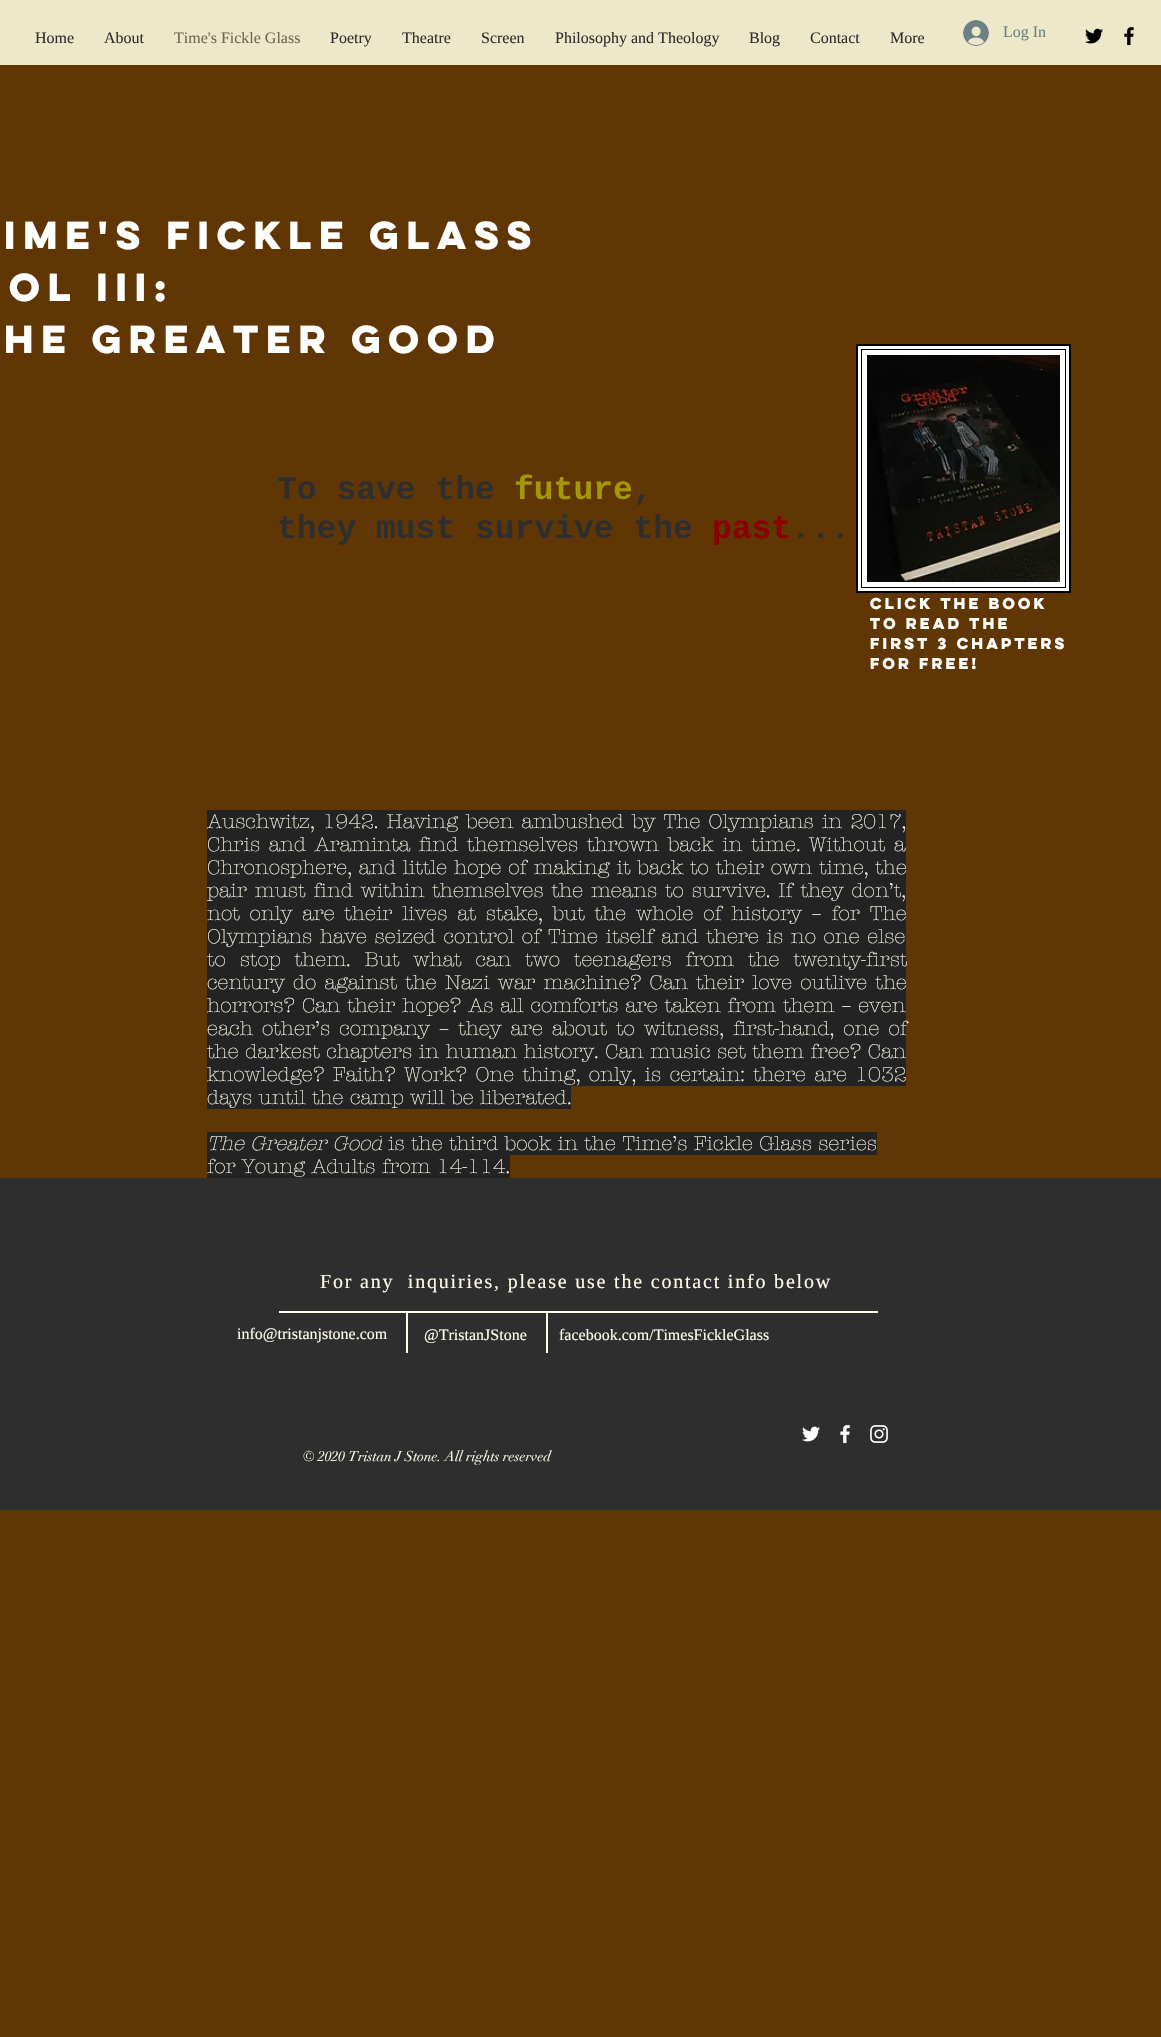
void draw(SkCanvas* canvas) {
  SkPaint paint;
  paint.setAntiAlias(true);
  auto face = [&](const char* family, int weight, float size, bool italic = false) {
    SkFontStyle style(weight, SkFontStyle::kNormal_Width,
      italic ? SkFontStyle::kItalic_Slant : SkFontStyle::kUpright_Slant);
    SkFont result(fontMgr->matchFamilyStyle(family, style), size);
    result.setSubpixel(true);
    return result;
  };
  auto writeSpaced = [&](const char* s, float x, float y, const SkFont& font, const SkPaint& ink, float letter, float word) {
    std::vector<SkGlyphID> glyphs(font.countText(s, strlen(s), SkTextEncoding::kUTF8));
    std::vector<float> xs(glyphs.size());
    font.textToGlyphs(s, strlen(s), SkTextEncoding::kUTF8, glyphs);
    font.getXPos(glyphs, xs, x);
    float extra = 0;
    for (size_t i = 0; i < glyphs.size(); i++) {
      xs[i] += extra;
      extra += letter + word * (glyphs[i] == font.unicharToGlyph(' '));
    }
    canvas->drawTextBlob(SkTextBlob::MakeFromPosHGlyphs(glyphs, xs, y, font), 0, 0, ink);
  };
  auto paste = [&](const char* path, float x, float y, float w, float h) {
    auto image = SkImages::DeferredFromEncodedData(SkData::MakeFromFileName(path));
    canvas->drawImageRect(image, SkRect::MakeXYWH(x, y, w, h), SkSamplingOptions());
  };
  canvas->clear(0xff613605);
  paint.setColor(0xffede8c9);
  canvas->drawRect(SkRect::MakeXYWH(0, 0, 1161, 65), paint);
  paste("img/1.png", 963, 20, 26, 26);
  paste("img/2.png", 1085, 28, 18, 16);
  paste("img/3.png", 1124, 26, 10, 20);
  paint.setColor(0xffffffff);
  canvas->drawRect(SkRect::MakeXYWH(857, 345, 213, 247), paint);
  paint.setStroke(true);
  paint.setStrokeWidth(2);
  paint.setColor(0xff000000);
  canvas->drawRect(SkRect::MakeXYWH(857, 345, 213, 247), paint);
  paste("img/4.png", 867, 355, 193, 227);
  paint.setStrokeWidth(1);
  canvas->drawRect(SkRect::MakeXYWH(861.5f, 349.5f, 204, 238), paint);
  paint.setStroke(false);
  {
    const struct { float x, y, w, h; SkColor color; } items[] = {
      {207, 810, 699, 276, 0xff232323},
      {207, 1086, 364, 23, 0xff232323},
      {207, 1132, 175, 23, 0xff232323},
      {207, 1155, 303, 23, 0xff232323},
      {0, 1178, 1161, 332, 0xff2f2e2e},
      {279, 1311, 599, 2, 0xfffffcec},
      {406, 1313, 2, 40, 0xfffffcec},
      {546, 1313, 2, 40, 0xfffffcec},
    };
    for (auto [x, y, w, h, color] : items) {
      paint.setColor(color);
      canvas->drawRect(SkRect::MakeXYWH(x, y, w, h), paint);
    }
  }
  paste("img/5.png", 802, 1426, 18, 16);
  paste("img/6.png", 840, 1424, 10, 20);
  paste("img/7.png", 870, 1425, 18, 18);
  auto f0 = face("Liberation Serif", 400, 16);
  paint.setColor(0xff2f2e2e);
  canvas->drawString("Home", 35, 43, f0, paint);
  canvas->drawString("About", 104, 43, f0, paint);
  paint.setColor(0xff6d694d);
  canvas->drawString("Time's Fickle Glass", 174, 43, f0, paint);
  paint.setColor(0xff2f2e2e);
  {
    const struct { const char* s; float x, y; } items[] = {
      {"Poetry", 330, 43},
      {"Theatre", 402, 43},
      {"Screen", 481, 43},
      {"Philosophy and Theology", 555, 43},
      {"Blog", 749, 43},
      {"Contact", 810, 43},
      {"More", 890, 43},
    };
    for (auto [s, x, y] : items) {
      canvas->drawString(s, x, y, f0, paint);
    }
  }
  paint.setColor(0xff6b8183);
  canvas->drawString("Log In", 1003, 37, f0, paint);
  auto f1 = face("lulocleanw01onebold", 700, 35);
  paint.setColor(0xffffffff);
  {
    const struct { const char* s; float x, y; } items[] = {
      {"ime's fickle glass", 4, 249},
      {"ol III:", 9, 301},
      {"he greater good", 4, 353},
    };
    for (auto [s, x, y] : items) {
      canvas->drawString(s, x, y, f1, paint);
    }
  }
  auto f2 = face("Liberation Mono", 700, 33);
  paint.setColor(0xff2f2e2e);
  canvas->drawString("To save the", 277, 499, f2, paint);
  paint.setColor(0xffa39607);
  canvas->drawString("future", 514, 499, f2, paint);
  paint.setColor(0xff2f2e2e);
  canvas->drawString(",", 633, 499, f2, paint);
  canvas->drawString("they must survive the", 277, 538, f2, paint);
  paint.setColor(0xff8b0000);
  canvas->drawString("past", 712, 538, f2, paint);
  paint.setColor(0xff2f2e2e);
  canvas->drawString("...", 791, 538, f2, paint);
  auto f3 = face("lulocleanw01onebold", 700, 14);
  paint.setColor(0xffffffff);
  {
    const struct { const char* s; float x, y; } items[] = {
      {"Click the book", 870, 609},
      {"to read the", 870, 629},
      {"first 3 chapters", 870, 649},
      {"for free!", 870, 669},
    };
    for (auto [s, x, y] : items) {
      canvas->drawString(s, x, y, f3, paint);
    }
  }
  auto f4 = face("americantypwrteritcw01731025", 300, 20);
  paint.setColor(0xfffffcec);
  writeSpaced("Auschwitz, 1942. Having been ambushed by The Olympians in 2017,", 207, 828, f4, paint, 0, 1.75f);
  writeSpaced("Chris and Araminta find themselves thrown back in time. Without a", 207, 851, f4, paint, 0, 2.25f);
  writeSpaced("Chronosphere, and little hope of making it back to their own time, the", 207, 874, f4, paint, 0, 0.5f);
  writeSpaced("pair must find within themselves the means to survive. If they don’t,", 207, 897, f4, paint, 0, 1.5f);
  writeSpaced("not only are their lives at stake, but the whole of history – for The", 207, 920, f4, paint, 0, 3.4f);
  writeSpaced("Olympians have seized control of Time itself and there is no one else", 207, 943, f4, paint, 0, 1.25f);
  writeSpaced("to stop them. But what can two teenagers from the twenty-first", 207, 966, f4, paint, 0, 7.5f);
  writeSpaced("century do against the Nazi war machine? Can their love outlive the", 207, 989, f4, paint, 0, 1.75f);
  writeSpaced("horrors? Can their hope? As all comforts are taken from them – even", 207, 1012, f4, paint, 0, 0.5f);
  writeSpaced("each other’s company – they are about to witness, first-hand, one of", 207, 1035, f4, paint, 0, 2.75f);
  writeSpaced("the darkest chapters in human history. Can music set them free? Can", 207, 1058, f4, paint, 0, 0.25f);
  writeSpaced("knowledge? Faith? Work? One thing, only, is certain: there are 1032", 207, 1081, f4, paint, 0, 2.1f);
  canvas->drawString("days until the camp will be liberated.", 207, 1104, f4, paint);
  auto f5 = face("americantypwrteritcw01731025", 300, 20, true);
  canvas->drawString("The Greater Good", 207, 1150, f5, paint);
  paint.setColor(0xff232323);
  canvas->drawRect(SkRect::MakeXYWH(382, 1132, 495, 23), paint);
  paint.setColor(0xfffffcec);
  canvas->drawString("is the third book in the Time’s Fickle Glass series", 388, 1150, f4, paint);
  canvas->drawString("for Young Adults from 14-114.", 207, 1173, f4, paint);
  auto f6 = face("Liberation Serif", 400, 20);
  writeSpaced("For any  inquiries, please use the contact info below", 320, 1288, f6, paint, 1.8f, 0);
  {
    const struct { const char* s; float x, y; } items[] = {
      {"info@tristanjstone.com", 237, 1339},
      {"@TristanJStone", 424, 1340},
      {"facebook.com/TimesFickleGlass", 559, 1340},
    };
    for (auto [s, x, y] : items) {
      canvas->drawString(s, x, y, f0, paint);
    }
  }
  auto f7 = face("didot", 400, 14);
  canvas->drawString("© 2020 Tristan J Stone. All rights reserved", 303, 1461, f7, paint);
}
